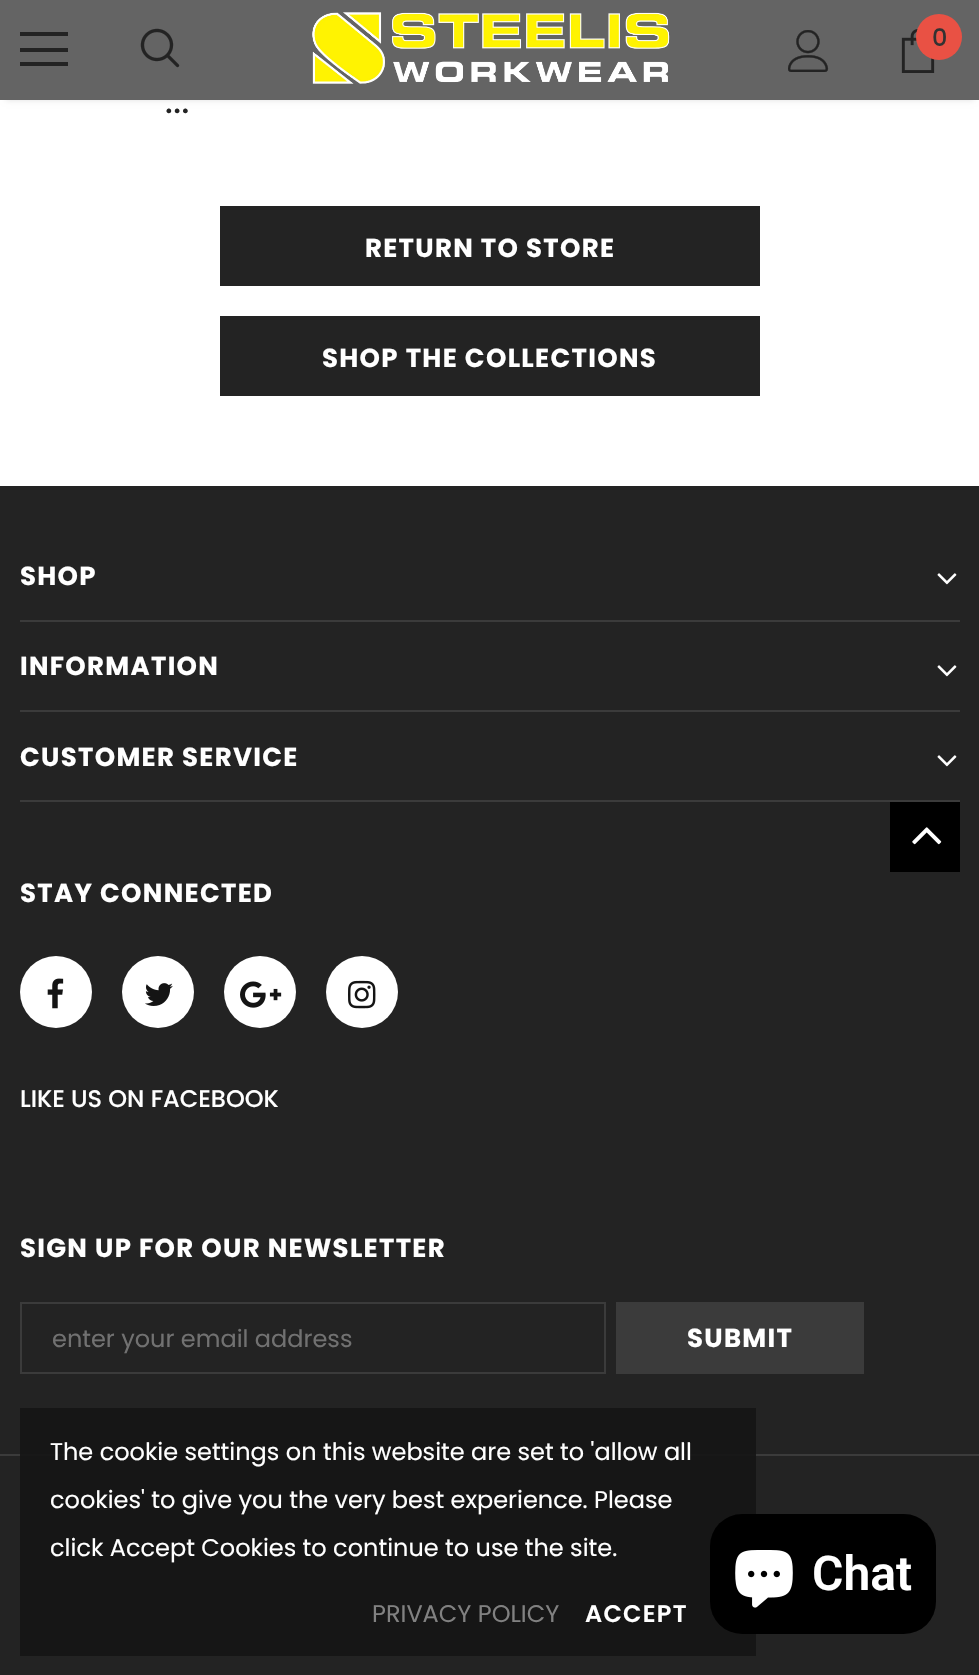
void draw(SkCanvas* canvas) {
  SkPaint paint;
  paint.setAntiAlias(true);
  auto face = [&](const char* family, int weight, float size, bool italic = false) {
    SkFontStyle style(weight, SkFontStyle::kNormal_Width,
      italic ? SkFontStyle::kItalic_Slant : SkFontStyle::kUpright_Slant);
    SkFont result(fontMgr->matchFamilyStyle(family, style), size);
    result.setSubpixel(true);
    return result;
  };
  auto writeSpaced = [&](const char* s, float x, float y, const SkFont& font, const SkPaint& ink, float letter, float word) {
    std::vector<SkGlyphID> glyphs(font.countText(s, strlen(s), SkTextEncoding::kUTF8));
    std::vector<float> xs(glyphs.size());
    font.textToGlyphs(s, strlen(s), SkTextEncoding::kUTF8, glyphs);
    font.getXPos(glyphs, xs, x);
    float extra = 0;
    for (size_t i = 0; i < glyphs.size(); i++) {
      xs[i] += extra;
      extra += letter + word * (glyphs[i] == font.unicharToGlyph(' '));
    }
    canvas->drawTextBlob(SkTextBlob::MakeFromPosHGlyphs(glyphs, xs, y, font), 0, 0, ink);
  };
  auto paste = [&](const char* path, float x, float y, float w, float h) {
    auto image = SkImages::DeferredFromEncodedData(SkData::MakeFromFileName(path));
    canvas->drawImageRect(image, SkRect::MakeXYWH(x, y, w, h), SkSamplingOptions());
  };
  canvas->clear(0xffffffff);
  paint.setColor(0x1f000000);
  paint.setMaskFilter(SkMaskFilter::MakeBlur(kNormal_SkBlurStyle, 3));
  canvas->drawRect(SkRect::MakeXYWH(6, 12, 968, 88), paint);
  paint.setMaskFilter(nullptr);
  {
    const struct { float x, y, w, h; SkColor color; } items[] = {
      {0, 0, 979, 100, 0xff646464},
      {20, 32, 48, 4, 0xff232323},
      {20, 48, 48, 4, 0xff232323},
      {20, 62, 48, 4, 0xff232323},
    };
    for (auto [x, y, w, h, color] : items) {
      paint.setColor(color);
      canvas->drawRect(SkRect::MakeXYWH(x, y, w, h), paint);
    }
  }
  paste("img/1.png", 140, 28, 40, 40);
  paste("img/2.png", 312, 12, 358, 72);
  paste("img/3.png", 788, 30, 41, 42);
  paste("img/4.png", 901, 29, 34, 44);
  paint.setColor(0xffe95144);
  canvas->drawCircle(939, 37, 23, paint);
  {
    const struct { float x, y, w, h; SkColor color; } items[] = {
      {220, 206, 540, 80, 0xff232323},
      {220, 316, 540, 80, 0xff232323},
      {0, 486, 979, 1189, 0xff232323},
      {20, 620, 940, 2, 0xff3b3b3b},
    };
    for (auto [x, y, w, h, color] : items) {
      paint.setColor(color);
      canvas->drawRect(SkRect::MakeXYWH(x, y, w, h), paint);
    }
  }
  paste("img/5.png", 937, 573, 20, 12);
  canvas->drawRect(SkRect::MakeXYWH(20, 710, 940, 2), paint);
  paste("img/5.png", 937, 665, 20, 12);
  canvas->drawRect(SkRect::MakeXYWH(20, 800, 940, 2), paint);
  paste("img/5.png", 937, 755, 20, 12);
  paint.setColor(0xffffffff);
  canvas->drawCircle(56, 992, 36, paint);
  paste("img/6.png", 47, 978, 17, 31);
  canvas->drawCircle(158, 992, 36, paint);
  paste("img/7.png", 145, 983, 28, 23);
  canvas->drawCircle(260, 992, 36, paint);
  paste("img/8.png", 240, 981, 42, 27);
  canvas->drawCircle(362, 992, 36, paint);
  paste("img/9.png", 348, 980, 28, 29);
  paint.setStroke(true);
  paint.setStrokeWidth(2);
  paint.setColor(0xff3b3b3b);
  canvas->drawRect(SkRect::MakeXYWH(21, 1303, 584, 70), paint);
  paint.setStroke(false);
  {
    const struct { float x, y, w, h; SkColor color; } items[] = {
      {616, 1302, 248, 72, 0xff3b3b3b},
      {0, 1454, 979, 2, 0xff3b3b3b},
      {890, 802, 70, 70, 0xff000000},
    };
    for (auto [x, y, w, h, color] : items) {
      paint.setColor(color);
      canvas->drawRect(SkRect::MakeXYWH(x, y, w, h), paint);
    }
  }
  paste("img/10.png", 912, 827, 30, 18);
  paint.setColor(0xe6141414);
  canvas->drawRect(SkRect::MakeXYWH(20, 1408, 736, 248), paint);
  paint.setColor(0xff000000);
  canvas->drawRoundRect(SkRect::MakeXYWH(710, 1514, 226, 120), 32, 32, paint);
  paste("img/11.png", 735, 1550, 58, 58);
  auto f0 = face("Poppins", 500, 24);
  paint.setColor(0xff323232);
  canvas->drawString("0", 932, 46, f0, paint);
  auto f1 = face("Poppins", 500, 32);
  paint.setColor(0xff232323);
  writeSpaced("...", 165, 113, f1, paint, 0.5f, 0);
  auto f2 = face("Poppins", 700, 26);
  paint.setColor(0xffffffff);
  {
    const struct { const char* s; float x, y; } items[] = {
      {"RETURN TO STORE", 365, 257},
      {"SHOP THE COLLECTIONS", 322, 367},
      {"SHOP", 20, 585},
      {"INFORMATION", 20, 675},
      {"CUSTOMER SERVICE", 20, 766},
      {"STAY CONNECTED", 20, 902},
    };
    for (auto [s, x, y] : items) {
      writeSpaced(s, x, y, f2, paint, 1.3f, 0);
    }
  }
  canvas->drawString("LIKE US ON FACEBOOK", 20, 1107, f0, paint);
  writeSpaced("SIGN UP FOR OUR NEWSLETTER", 20, 1257, f2, paint, 1.3f, 0);
  auto f3 = face("Poppins", 400, 24);
  paint.setColor(0xff717171);
  canvas->drawString("enter your email address", 52, 1347, f3, paint);
  paint.setColor(0xffffffff);
  writeSpaced("SUBMIT", 687, 1347, f2, paint, 1.3f, 0);
  {
    const struct { const char* s; float x, y; } items[] = {
      {"The cookie settings on this website are set to 'allow all", 50, 1460},
      {"cookies' to give you the very best experience. Please", 50, 1508},
      {"click Accept Cookies to continue to use the site.", 50, 1556},
    };
    for (auto [s, x, y] : items) {
      canvas->drawString(s, x, y, f3, paint);
    }
  }
  paint.setColor(0xff818181);
  canvas->drawString("PRIVACY POLICY", 372, 1622, f3, paint);
  auto f4 = face("Poppins", 600, 24);
  paint.setColor(0xffffffff);
  writeSpaced("ACCEPT", 585, 1622, f4, paint, 1.25f, 0);
  auto f5 = face("Roboto", 600, 48);
  canvas->drawString("Chat", 812, 1590, f5, paint);
}
